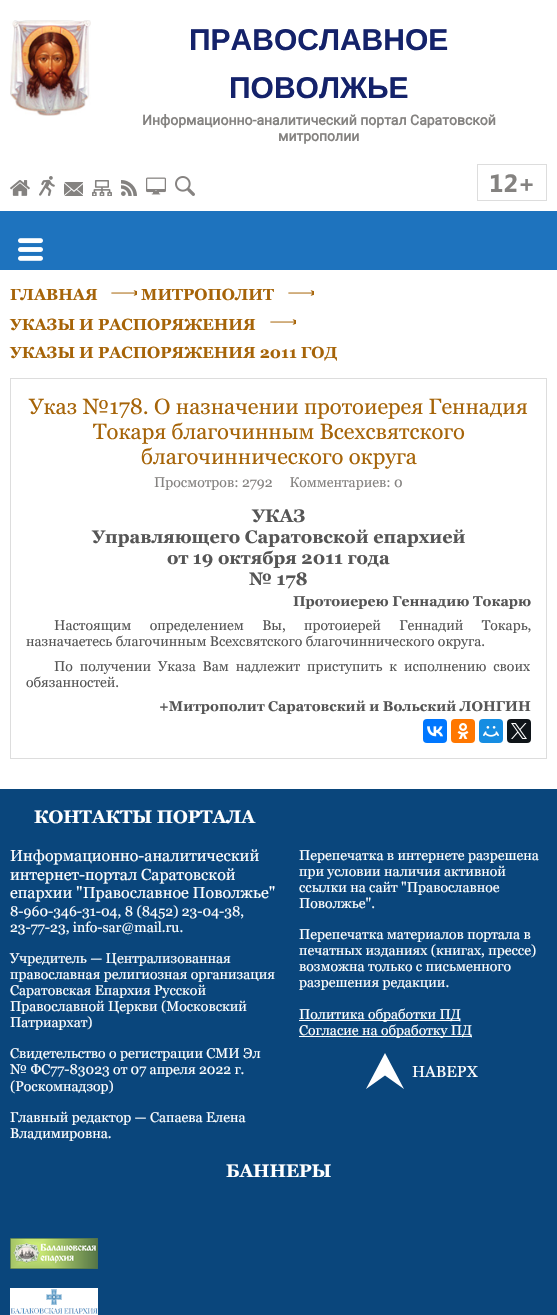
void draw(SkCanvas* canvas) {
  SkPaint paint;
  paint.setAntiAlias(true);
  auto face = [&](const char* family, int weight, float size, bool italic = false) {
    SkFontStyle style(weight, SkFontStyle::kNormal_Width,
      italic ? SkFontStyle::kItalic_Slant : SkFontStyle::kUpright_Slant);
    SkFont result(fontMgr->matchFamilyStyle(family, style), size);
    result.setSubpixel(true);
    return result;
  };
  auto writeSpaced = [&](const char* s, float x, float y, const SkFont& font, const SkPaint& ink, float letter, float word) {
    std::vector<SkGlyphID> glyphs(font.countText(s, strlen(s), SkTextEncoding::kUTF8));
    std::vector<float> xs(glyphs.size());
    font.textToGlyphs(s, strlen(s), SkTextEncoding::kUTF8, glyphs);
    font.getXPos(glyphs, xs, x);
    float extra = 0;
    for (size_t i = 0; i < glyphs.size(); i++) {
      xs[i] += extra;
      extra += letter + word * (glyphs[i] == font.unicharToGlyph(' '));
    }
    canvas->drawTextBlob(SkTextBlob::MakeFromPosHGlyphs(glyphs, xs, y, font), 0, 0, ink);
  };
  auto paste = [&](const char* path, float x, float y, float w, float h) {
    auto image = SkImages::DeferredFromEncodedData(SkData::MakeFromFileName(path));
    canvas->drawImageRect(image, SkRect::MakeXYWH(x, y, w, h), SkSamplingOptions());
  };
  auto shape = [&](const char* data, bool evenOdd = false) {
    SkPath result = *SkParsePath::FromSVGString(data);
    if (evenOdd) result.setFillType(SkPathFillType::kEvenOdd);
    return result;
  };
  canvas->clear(0xffffffff);
  paste("img/1.png", 10, 20, 81, 96);
  paste("img/2.png", 10, 180, 20, 16);
  paste("img/3.png", 39, 176, 16, 20);
  paste("img/4.png", 64, 182, 19, 14);
  paste("img/5.png", 92, 180, 20, 16);
  paste("img/6.png", 121, 180, 16, 16);
  paste("img/7.png", 146, 177, 20, 18);
  paste("img/8.png", 175, 176, 20, 20);
  paint.setStroke(true);
  paint.setStrokeWidth(1);
  paint.setColor(0xffdddddd);
  canvas->drawRect(SkRect::MakeXYWH(477.5f, 164.5f, 69, 36), paint);
  paint.setStroke(false);
  paint.setColor(0xff1e73be);
  canvas->drawRect(SkRect::MakeXYWH(0, 211, 557, 59), paint);
  paste("img/9.png", 18, 238, 25, 23);
  paste("img/10.png", 111, 290, 26, 6);
  paste("img/10.png", 288, 290, 26, 6);
  paste("img/10.png", 270, 319, 26, 6);
  paint.setStroke(true);
  paint.setColor(0xffdddddd);
  canvas->drawRect(SkRect::MakeXYWH(10.5f, 378.5f, 536, 380), paint);
  paint.setStroke(false);
  paint.setColor(0xff0077ff);
  canvas->drawRoundRect(SkRect::MakeXYWH(423, 719, 24, 24), 4, 4, paint);
  paste("img/11.png", 427, 726, 16, 11);
  paint.setColor(0xffff7700);
  canvas->drawRoundRect(SkRect::MakeXYWH(451, 719, 24, 24), 4, 4, paint);
  paste("img/12.png", 457, 723, 12, 16);
  paint.setColor(0xff168de2);
  canvas->drawRoundRect(SkRect::MakeXYWH(479, 719, 24, 24), 4, 4, paint);
  paste("img/13.png", 483, 726, 16, 11);
  paint.setColor(0xff0f1419);
  canvas->drawRoundRect(SkRect::MakeXYWH(507, 719, 24, 24), 4, 4, paint);
  paste("img/14.png", 511, 723, 16, 16);
  {
    const struct { float x, y, w, h; SkColor color; } items[] = {
      {0, 789, 557, 526, 0xff0a467c},
      {299, 1020, 161, 1, 0xffffffff},
      {299, 1036, 173, 1, 0xffffffff},
    };
    for (auto [x, y, w, h, color] : items) {
      paint.setColor(color);
      canvas->drawRect(SkRect::MakeXYWH(x, y, w, h), paint);
    }
  }
  canvas->drawPath(shape("M385 1075.5L366 1089L385 1053L404 1089Z"), paint);
  paste("img/15.png", 10, 1238, 88, 31);
  paste("img/16.png", 10, 1288, 88, 27);
  auto f0 = face("Liberation Sans", 700, 30);
  paint.setColor(0xff14226a);
  canvas->drawString("ПРАВОСЛАВНОЕ", 189, 50, f0, paint);
  canvas->drawString("ПОВОЛЖЬЕ", 229, 98, f0, paint);
  auto f1 = face("Roboto", 700, 14);
  paint.setColor(0xff848280);
  canvas->drawString("Информационно-аналитический портал Саратовской", 142, 125, f1, paint);
  canvas->drawString("митрополии", 278, 141, f1, paint);
  auto f2 = face("Segoe UI", 700, 25);
  canvas->drawString("12+", 489, 192, f2, paint);
  auto f3 = face("Georgia", 700, 16);
  paint.setColor(0xffa66408);
  {
    const struct { const char* s; float x, y; } items[] = {
      {"ГЛАВНАЯ", 10, 300},
      {"МИТРОПОЛИТ", 141, 300},
      {"УКАЗЫ И РАСПОРЯЖЕНИЯ", 10, 330},
      {"УКАЗЫ И РАСПОРЯЖЕНИЯ 2011 ГОД", 10, 358},
    };
    for (auto [s, x, y] : items) {
      canvas->drawString(s, x, y, f3, paint);
    }
  }
  auto f4 = face("Georgia", 400, 22);
  {
    const struct { const char* s; float x, y; } items[] = {
      {"Указ №178. О назначении протоиерея Геннадия", 29, 414},
      {"Токаря благочинным Всехсвятского", 93, 439},
      {"благочиннического округа", 141, 464},
    };
    for (auto [s, x, y] : items) {
      canvas->drawString(s, x, y, f4, paint);
    }
  }
  auto f5 = face("Georgia", 400, 14);
  paint.setColor(0xff848280);
  canvas->drawString("Просмотров: 2792     Комментариев: 0", 154, 487, f5, paint);
  auto f6 = face("Georgia", 700, 18);
  paint.setColor(0xff565656);
  {
    const struct { const char* s; float x, y; } items[] = {
      {"УКАЗ", 252, 522},
      {"Управляющего Саратовской епархией", 92, 543},
      {"от 19 октября 2011 года", 167, 564},
      {"№ 178", 249, 585},
    };
    for (auto [s, x, y] : items) {
      canvas->drawString(s, x, y, f6, paint);
    }
  }
  auto f7 = face("Georgia", 700, 14);
  canvas->drawString("Протоиерею Геннадию Токарю", 293, 606, f7, paint);
  writeSpaced("Настоящим определением Вы, протоиерей Геннадий Токарь,", 54, 630, f5, paint, 0, 15);
  canvas->drawString("назначаетесь благочинным Всехсвятского благочиннического округа.", 26, 646, f5, paint);
  writeSpaced("По получении Указа Вам надлежит приступить к исполнению своих", 54, 671, f5, paint, 0, 3.5f);
  canvas->drawString("обязанностей.", 26, 687, f5, paint);
  canvas->drawString("+Митрополит Саратовский и Вольский ЛОНГИН", 159, 711, f7, paint);
  paint.setColor(0xffffffff);
  canvas->drawString("КОНТАКТЫ ПОРТАЛА", 34, 823, f6, paint);
  auto f8 = face("Georgia", 400, 16);
  {
    const struct { const char* s; float x, y; } items[] = {
      {"Информационно-аналитический", 10, 861},
      {"интернет-портал Саратовской", 10, 880},
      {"епархии \"Православное Поволжье\"", 10, 898},
    };
    for (auto [s, x, y] : items) {
      canvas->drawString(s, x, y, f8, paint);
    }
  }
  {
    const struct { const char* s; float x, y; } items[] = {
      {"8-960-346-31-04, 8 (8452) 23-04-38,", 10, 916},
      {"23-77-23, info-sar@mail.ru.", 10, 932},
      {"Учредитель — Централизованная", 10, 963},
      {"православная религиозная организация", 10, 979},
      {"Саратовская Епархия Русской", 10, 995},
      {"Православной Церкви (Московский", 10, 1011},
      {"Патриархат)", 10, 1027},
      {"Свидетельство о регистрации СМИ Эл", 10, 1058},
      {"№ ФС77-83023 от 07 апреля 2022 г.", 10, 1074},
      {"(Роскомнадзор)", 10, 1091},
      {"Главный редактор — Сапаева Елена", 10, 1122},
      {"Владимировна.", 10, 1138},
      {"Перепечатка в интернете разрешена", 299, 860},
      {"при условии наличия активной", 299, 876},
      {"ссылки на сайт \"Православное", 299, 892},
      {"Поволжье\".", 299, 908},
      {"Перепечатка материалов портала в", 299, 939},
      {"печатных изданиях (книгах, прессе)", 299, 955},
      {"возможна только с письменного", 299, 971},
      {"разрешения редакции.", 299, 987},
      {"Политика обработки ПД", 299, 1019},
      {"Согласие на обработку ПД", 299, 1035},
    };
    for (auto [s, x, y] : items) {
      canvas->drawString(s, x, y, f5, paint);
    }
  }
  canvas->drawString("НАВЕРХ", 412, 1077, f8, paint);
  canvas->drawString("БАННЕРЫ", 226, 1177, f6, paint);
}
